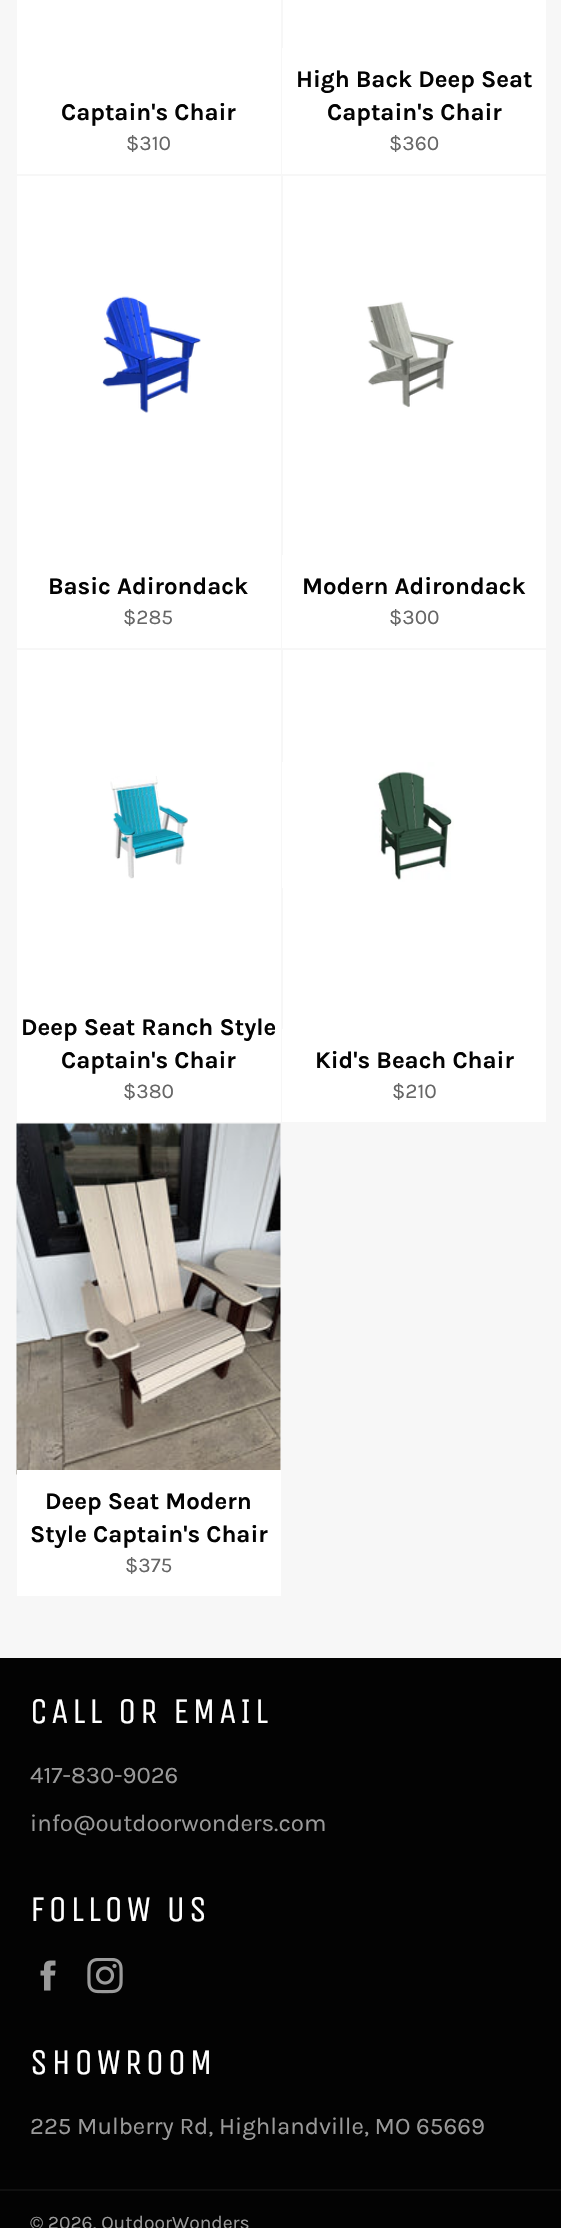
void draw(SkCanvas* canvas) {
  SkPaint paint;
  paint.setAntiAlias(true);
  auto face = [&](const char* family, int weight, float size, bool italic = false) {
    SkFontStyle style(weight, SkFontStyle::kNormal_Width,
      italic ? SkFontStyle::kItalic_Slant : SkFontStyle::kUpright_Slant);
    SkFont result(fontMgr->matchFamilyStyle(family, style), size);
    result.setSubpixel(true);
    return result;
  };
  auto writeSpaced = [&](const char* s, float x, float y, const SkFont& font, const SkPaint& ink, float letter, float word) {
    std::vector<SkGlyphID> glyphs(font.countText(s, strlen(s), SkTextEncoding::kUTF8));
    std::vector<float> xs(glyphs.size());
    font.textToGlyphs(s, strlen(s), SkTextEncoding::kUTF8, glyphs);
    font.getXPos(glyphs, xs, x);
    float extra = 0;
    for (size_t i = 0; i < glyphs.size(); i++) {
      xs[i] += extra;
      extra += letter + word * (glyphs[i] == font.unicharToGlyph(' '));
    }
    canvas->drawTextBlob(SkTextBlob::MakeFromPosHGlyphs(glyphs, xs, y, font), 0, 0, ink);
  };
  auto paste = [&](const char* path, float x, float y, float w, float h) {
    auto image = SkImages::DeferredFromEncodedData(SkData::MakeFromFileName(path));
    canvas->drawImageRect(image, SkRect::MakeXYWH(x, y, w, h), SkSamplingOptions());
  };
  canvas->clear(0xfff7f7f7);
  {
    const struct { float x, y, w, h; SkColor color; } items[] = {
      {17, 0, 264, 174, 0xffffffff},
      {283, 0, 263, 48, 0xffffffff},
      {282, 48, 264, 126, 0xffffffff},
      {17, 176, 264, 472, 0xffffffff},
    };
    for (auto [x, y, w, h, color] : items) {
      paint.setColor(color);
      canvas->drawRect(SkRect::MakeXYWH(x, y, w, h), paint);
    }
  }
  paste("img/1.png", 102, 296, 99, 117);
  canvas->drawRect(SkRect::MakeXYWH(283, 176, 263, 379), paint);
  paste("img/2.png", 367, 301, 88, 107);
  canvas->drawRect(SkRect::MakeXYWH(282, 555, 264, 93), paint);
  canvas->drawRect(SkRect::MakeXYWH(17, 650, 264, 472), paint);
  paste("img/3.png", 110, 776, 78, 103);
  canvas->drawRect(SkRect::MakeXYWH(283, 650, 263, 379), paint);
  paste("img/4.png", 282, 762, 172, 126);
  canvas->drawRect(SkRect::MakeXYWH(282, 1029, 264, 93), paint);
  canvas->drawRect(SkRect::MakeXYWH(280, 1124, 1, 346), paint);
  paste("img/5.png", 16, 1123, 265, 352);
  canvas->drawRect(SkRect::MakeXYWH(17, 1470, 264, 126), paint);
  paint.setColor(0xff030303);
  canvas->drawRect(SkRect::MakeXYWH(0, 1658, 561, 570), paint);
  paste("img/6.png", 40, 1960, 16, 31);
  paste("img/7.png", 87, 1958, 36, 36);
  paint.setColor(0xff101010);
  canvas->drawRect(SkRect::MakeXYWH(0, 2189, 561, 2), paint);
  auto f0 = face("Karla", 700, 24);
  paint.setColor(0xff030303);
  canvas->drawString("Captain's Chair", 61, 120, f0, paint);
  auto f1 = face("Karla", 400, 21);
  paint.setColor(0xff666666);
  canvas->drawString("$310", 126, 150, f1, paint);
  paint.setColor(0xff030303);
  canvas->drawString("High Back Deep Seat", 296, 87, f0, paint);
  canvas->drawString("Captain's Chair", 327, 120, f0, paint);
  paint.setColor(0xff666666);
  canvas->drawString("$360", 389, 150, f1, paint);
  paint.setColor(0xff030303);
  canvas->drawString("Basic Adirondack", 48, 594, f0, paint);
  paint.setColor(0xff666666);
  canvas->drawString("$285", 123, 624, f1, paint);
  paint.setColor(0xff030303);
  canvas->drawString("Modern Adirondack", 302, 594, f0, paint);
  paint.setColor(0xff666666);
  canvas->drawString("$300", 389, 624, f1, paint);
  paint.setColor(0xff030303);
  canvas->drawString("Deep Seat Ranch Style", 21, 1035, f0, paint);
  canvas->drawString("Captain's Chair", 61, 1068, f0, paint);
  paint.setColor(0xff666666);
  canvas->drawString("$380", 123, 1098, f1, paint);
  paint.setColor(0xff030303);
  canvas->drawString("Kid's Beach Chair", 315, 1068, f0, paint);
  paint.setColor(0xff666666);
  canvas->drawString("$210", 392, 1098, f1, paint);
  paint.setColor(0xff030303);
  canvas->drawString("Deep Seat Modern", 45, 1509, f0, paint);
  canvas->drawString("Style Captain's Chair", 30, 1542, f0, paint);
  paint.setColor(0xff666666);
  canvas->drawString("$375", 125, 1572, f1, paint);
  auto f2 = face("Unica One", 400, 36);
  paint.setColor(0xffffffff);
  writeSpaced("CALL OR EMAIL", 30, 1723, f2, paint, 3.6f, 0);
  auto f3 = face("Karla", 400, 24);
  paint.setColor(0xff9a9a9a);
  canvas->drawString("417-830-9026", 30, 1783, f3, paint);
  canvas->drawString("info@outdoorwonders.com", 30, 1831, f3, paint);
  paint.setColor(0xffffffff);
  writeSpaced("FOLLOW US", 30, 1921, f2, paint, 3.6f, 0);
  writeSpaced("SHOWROOM", 30, 2074, f2, paint, 3.6f, 0);
  paint.setColor(0xff9a9a9a);
  canvas->drawString("225 Mulberry Rd, Highlandville, MO 65669", 30, 2134, f3, paint);
  auto f4 = face("Karla", 400, 19.25f);
  canvas->drawString("© 2026, OutdoorWonders", 30, 2229, f4, paint);
}
